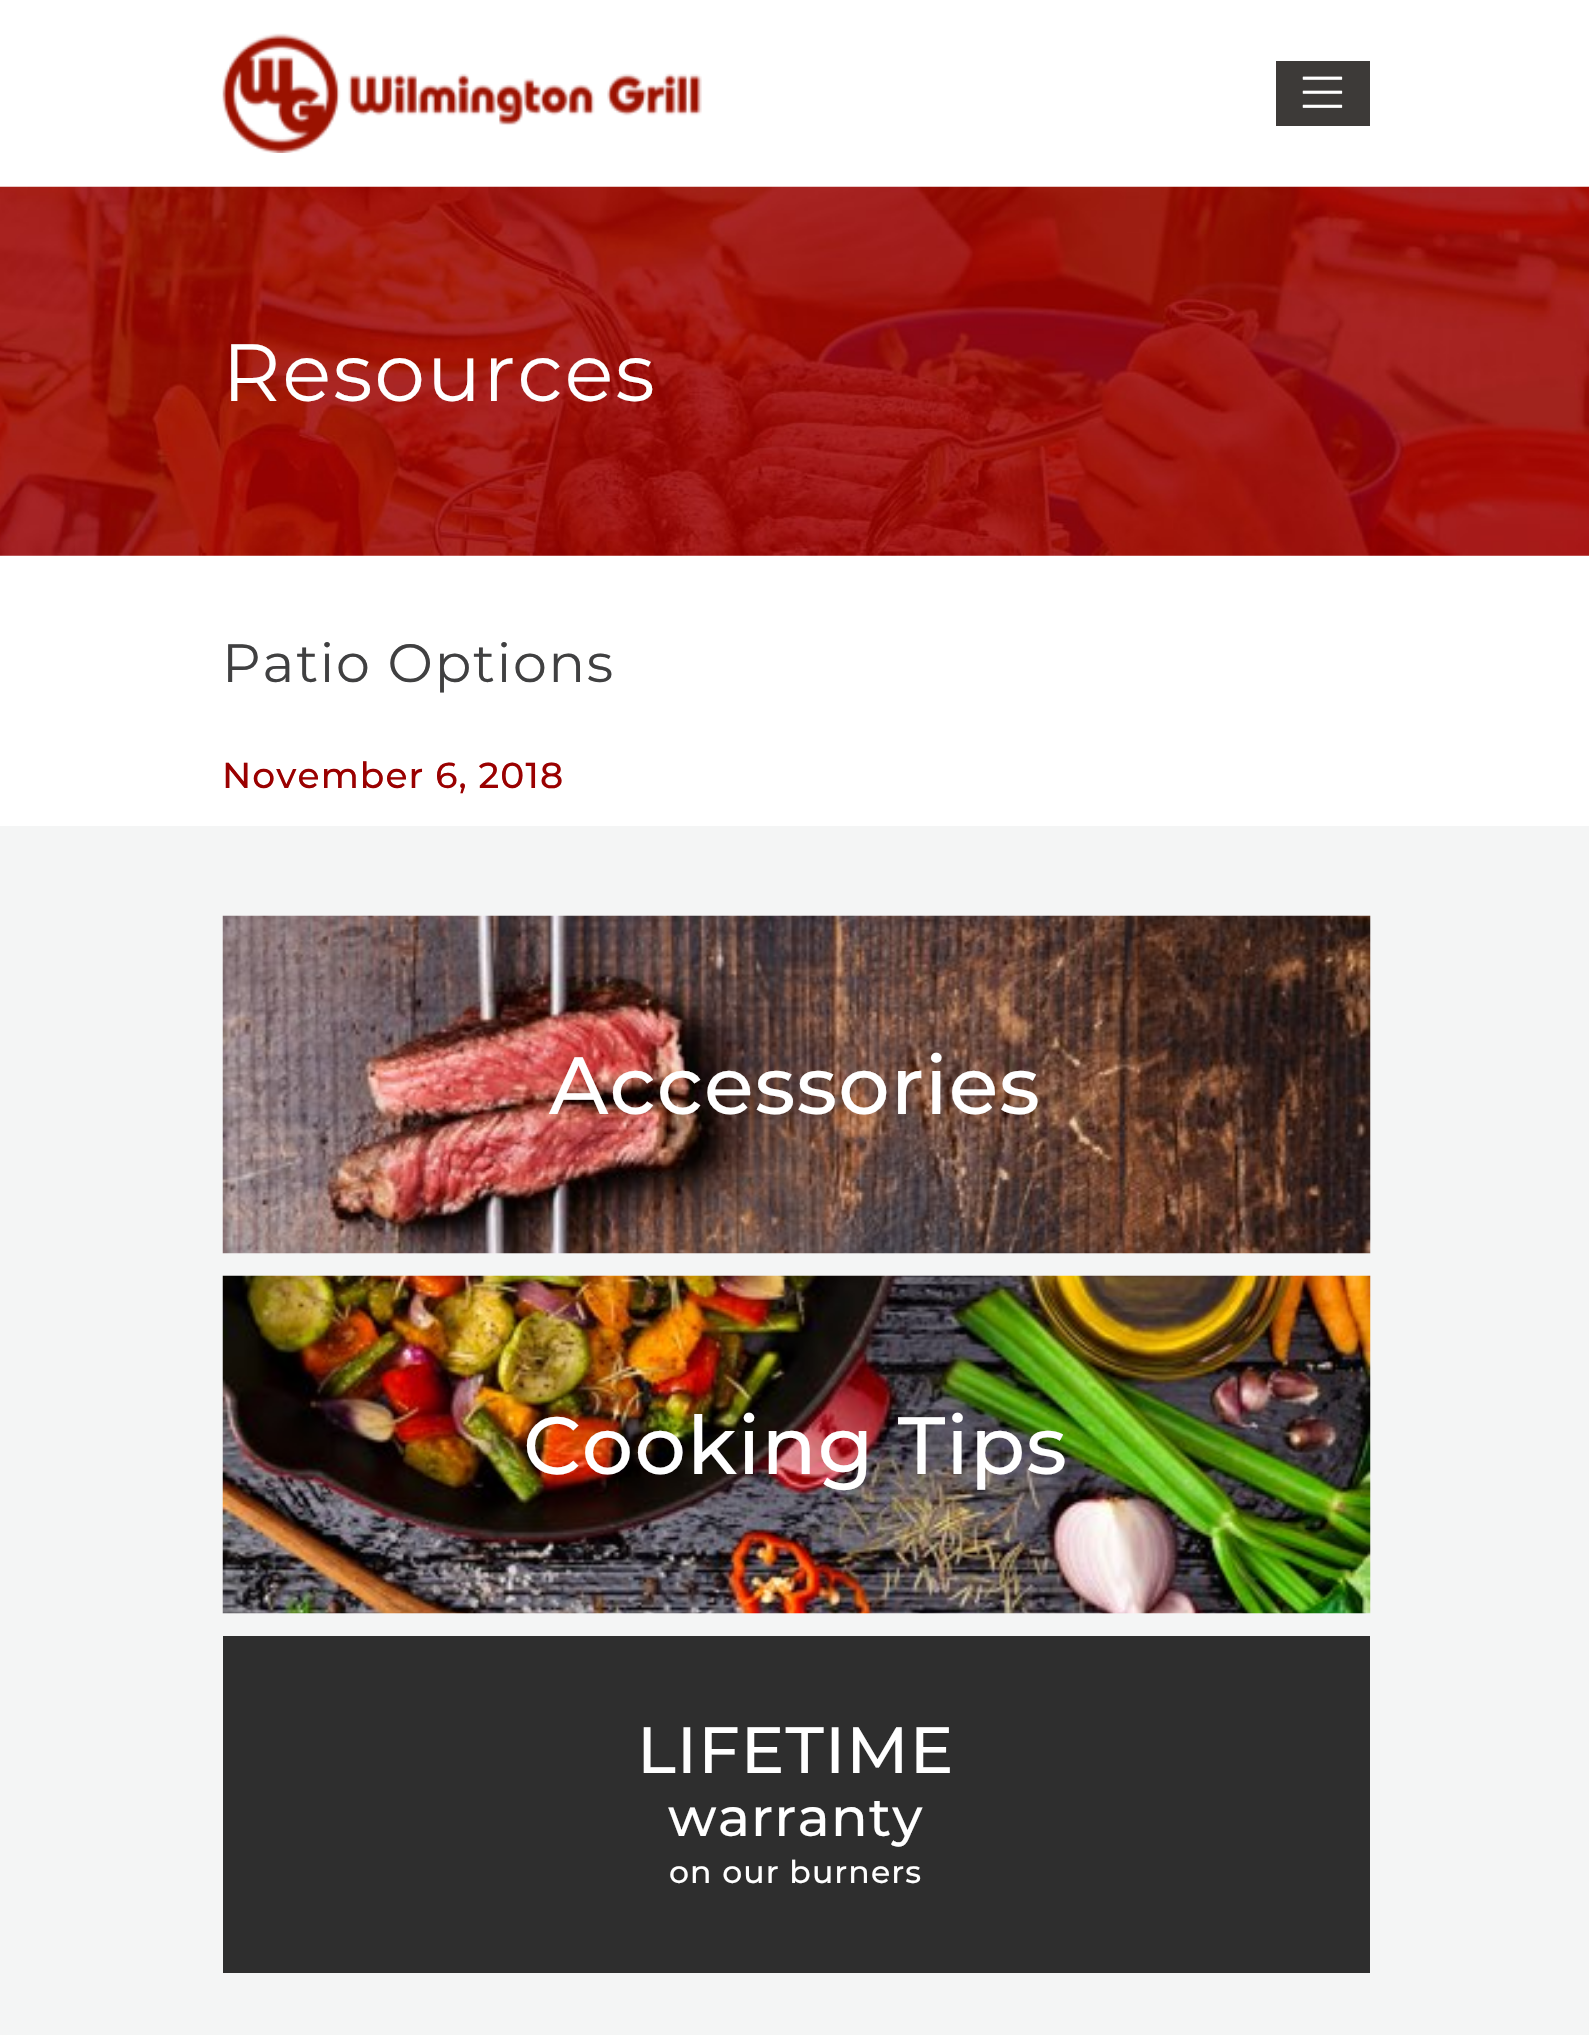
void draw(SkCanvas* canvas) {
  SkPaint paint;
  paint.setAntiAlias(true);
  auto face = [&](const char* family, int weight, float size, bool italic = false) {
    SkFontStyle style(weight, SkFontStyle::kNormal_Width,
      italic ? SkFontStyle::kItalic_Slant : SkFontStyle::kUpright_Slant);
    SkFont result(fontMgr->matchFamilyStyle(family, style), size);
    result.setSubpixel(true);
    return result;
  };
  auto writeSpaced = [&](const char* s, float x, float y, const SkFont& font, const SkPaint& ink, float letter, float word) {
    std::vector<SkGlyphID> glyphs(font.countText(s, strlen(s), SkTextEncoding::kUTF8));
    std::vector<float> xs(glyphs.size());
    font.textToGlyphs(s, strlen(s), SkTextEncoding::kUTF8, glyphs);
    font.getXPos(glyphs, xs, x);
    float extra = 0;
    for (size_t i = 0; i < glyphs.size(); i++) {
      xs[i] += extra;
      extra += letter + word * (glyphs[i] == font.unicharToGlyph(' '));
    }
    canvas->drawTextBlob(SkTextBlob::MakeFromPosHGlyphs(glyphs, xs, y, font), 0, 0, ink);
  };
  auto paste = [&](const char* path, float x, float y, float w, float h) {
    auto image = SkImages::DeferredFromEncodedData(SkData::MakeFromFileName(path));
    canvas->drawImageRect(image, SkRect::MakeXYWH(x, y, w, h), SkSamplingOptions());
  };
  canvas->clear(0xffffffff);
  paste("img/1.png", 222, 33, 480, 120);
  paint.setColor(0xff3d3a38);
  canvas->drawRect(SkRect::MakeXYWH(1276, 61, 94, 65), paint);
  paste("img/2.png", 1302, 76, 41, 32);
  paste("img/3.png", 0, 186, 1589, 370);
  paint.setColor(0xfff4f5f5);
  canvas->drawRect(SkRect::MakeXYWH(0, 826, 1589, 1209), paint);
  paste("img/4.png", 222, 915, 1149, 339);
  paste("img/5.png", 222, 1275, 1149, 339);
  paint.setColor(0xff2e2e2e);
  canvas->drawRect(SkRect::MakeXYWH(223, 1636, 1147, 337), paint);
  auto f0 = face("Montserrat", 400, 81);
  paint.setColor(0xffffffff);
  writeSpaced("Resources", 222, 401, f0, paint, 1.75f, 0);
  auto f1 = face("Montserrat", 400, 54);
  paint.setColor(0xff404041);
  writeSpaced("Patio Options", 222, 682, f1, paint, 1.75f, 0);
  auto f2 = face("Montserrat", 500, 36);
  paint.setColor(0xff9a0000);
  writeSpaced("November 6, 2018", 222, 788, f2, paint, 1.1f, 0);
  auto f3 = face("Montserrat", 500, 81);
  paint.setColor(0xffffffff);
  writeSpaced("Accessories", 549, 1114, f3, paint, 1.1f, 0);
  writeSpaced("Cooking Tips", 523, 1474, f3, paint, 1.1f, 0);
  auto f4 = face("Montserrat", 500, 65.25f);
  writeSpaced("LIFETIME", 637, 1773, f4, paint, 1.1f, 0);
  auto f5 = face("Montserrat", 500, 54);
  writeSpaced("warranty", 668, 1836, f5, paint, 1.1f, 0);
  auto f6 = face("Montserrat", 500, 31.5f);
  writeSpaced("on our burners", 669, 1883, f6, paint, 1.1f, 0);
}
